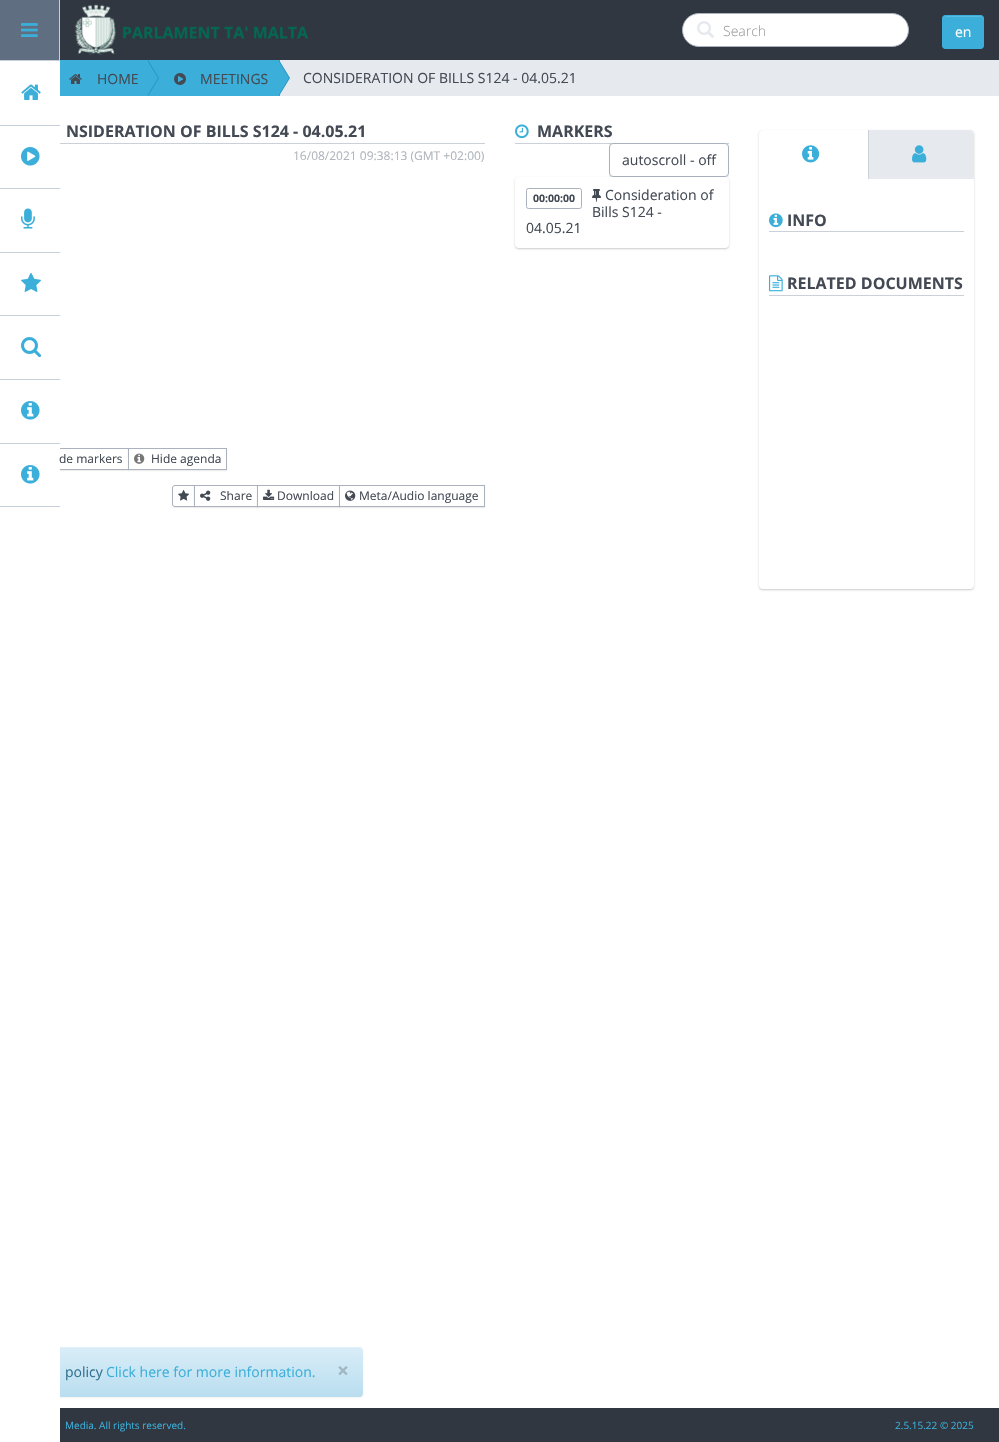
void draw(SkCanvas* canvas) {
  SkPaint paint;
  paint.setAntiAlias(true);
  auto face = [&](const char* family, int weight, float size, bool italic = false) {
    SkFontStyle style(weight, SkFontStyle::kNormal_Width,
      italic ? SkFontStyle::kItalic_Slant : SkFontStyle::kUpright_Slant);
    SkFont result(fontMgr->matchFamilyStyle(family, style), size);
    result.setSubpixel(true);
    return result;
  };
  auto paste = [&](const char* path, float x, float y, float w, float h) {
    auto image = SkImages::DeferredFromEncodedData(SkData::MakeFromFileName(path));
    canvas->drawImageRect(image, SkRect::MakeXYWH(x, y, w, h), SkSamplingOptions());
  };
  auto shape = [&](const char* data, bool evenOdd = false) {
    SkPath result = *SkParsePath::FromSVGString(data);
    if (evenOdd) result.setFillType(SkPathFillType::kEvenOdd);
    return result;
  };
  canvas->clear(0xffffffff);
  {
    const struct { float x, y, w, h; SkColor color; } items[] = {
      {60, 0, 939, 60, 0xff303741},
      {59, 0, 1, 60, 0xffc6d0da},
      {0, 0, 59, 60, 0xff5f6f81},
    };
    for (auto [x, y, w, h, color] : items) {
      paint.setColor(color);
      canvas->drawRect(SkRect::MakeXYWH(x, y, w, h), paint);
    }
  }
  paste("img/1.png", 21, 23, 17, 14);
  paint.setColor(0xff3bafda);
  canvas->drawRect(SkRect::MakeXYWH(60, 61, 88, 34), paint);
  paint.setStroke(true);
  paint.setStrokeWidth(1);
  canvas->drawRect(SkRect::MakeXYWH(-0.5f, 60.5f, 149, 35), paint);
  paint.setStroke(false);
  paint.setColor(0x12000000);
  paint.setMaskFilter(SkMaskFilter::MakeBlur(kNormal_SkBlurStyle, 0.5f));
  canvas->drawRoundRect(SkRect::MakeXYWH(25, 449, 104, 22), 3, 3, paint);
  paint.setMaskFilter(nullptr);
  paint.setColor(0xffffffff);
  canvas->drawRect(SkRect::MakeXYWH(60, 449, 68, 20), paint);
  paint.setStroke(true);
  paint.setColor(0xffaab2bd);
  canvas->drawRect(SkRect::MakeXYWH(25.5f, 448.5f, 103, 21), paint);
  paint.setStroke(false);
  paint.setColor(0x0d000000);
  paint.setMaskFilter(SkMaskFilter::MakeBlur(kNormal_SkBlurStyle, 1));
  canvas->drawRoundRect(SkRect::MakeXYWH(0, 1348, 363, 50), 4, 4, paint);
  paint.setMaskFilter(nullptr);
  {
    const SkColor colors[] = {0xffd9edf7, 0xffb9def0};
    const float stops[] = {0, 1};
    const SkPoint ends[] = {{182, 1347}, {182, 1397}};
    paint.setShader(SkGradientShader::MakeLinear(ends, colors, stops, 2, SkTileMode::kClamp));
    paint.setAlpha(255);
  }
  canvas->drawRoundRect(SkRect::MakeXYWH(0, 1347, 363, 50), 4, 4, paint);
  paint.setShader(nullptr);
  paint.setColor(0x40ffffff);
  canvas->drawPath(shape("M4 1348H359C361 1348 363 1350 363 1352C363 1349 362 1347 359 1347H3L1 1349L0 1352C0 1350 2 1348 4 1348Z"), paint);
  {
    const struct { float x, y, w, h; SkColor color; } items[] = {
      {0, 61, 60, 1338, 0xffffffff},
      {0, 60, 60, 1, 0xffc6d0da},
      {0, 506, 60, 1, 0xffc6d0da},
    };
    for (auto [x, y, w, h, color] : items) {
      paint.setColor(color);
      canvas->drawRect(SkRect::MakeXYWH(x, y, w, h), paint);
    }
  }
  paste("img/2.png", 21, 84, 20, 16);
  canvas->drawRect(SkRect::MakeXYWH(0, 125, 60, 1), paint);
  paste("img/3.png", 21, 147, 19, 19);
  canvas->drawRect(SkRect::MakeXYWH(0, 188, 60, 1), paint);
  paste("img/4.png", 21, 208, 14, 21);
  canvas->drawRect(SkRect::MakeXYWH(0, 252, 60, 1), paint);
  paste("img/5.png", 21, 272, 20, 20);
  canvas->drawRect(SkRect::MakeXYWH(0, 315, 60, 1), paint);
  paste("img/6.png", 21, 337, 20, 21);
  canvas->drawRect(SkRect::MakeXYWH(0, 379, 60, 1), paint);
  paste("img/7.png", 21, 401, 19, 19);
  canvas->drawRect(SkRect::MakeXYWH(0, 443, 60, 1), paint);
  paste("img/7.png", 21, 465, 19, 19);
  paste("img/8.png", 74, 4, 234, 51);
  paint.setColor(0xffffffff);
  canvas->drawRoundRect(SkRect::MakeXYWH(682.5f, 13.5f, 226, 33), 16.5f, 16.5f, paint);
  paint.setStroke(true);
  paint.setColor(0xffaab2bd);
  canvas->drawRoundRect(SkRect::MakeXYWH(682.5f, 13.5f, 226, 33), 16.5f, 16.5f, paint);
  paste("img/9.png", 697, 21, 17, 17);
  paint.setStroke(false);
  paint.setColor(0xff3bafda);
  canvas->drawRoundRect(SkRect::MakeXYWH(942, 15, 42, 34), 4, 4, paint);
  paint.setColor(0xff58bbe0);
  canvas->drawPath(shape("M946 17H980C982 17 983 18 983 20C983 15 978 16 974 16H952C948 16 943 15 943 20C943 18 944 17 946 17Z"), paint);
  paint.setStroke(true);
  paint.setColor(0xff3bafda);
  canvas->drawRoundRect(SkRect::MakeXYWH(942.5f, 15.5f, 41, 33), 3.5f, 3.5f, paint);
  paint.setStroke(false);
  paint.setColor(0xffe6e9ed);
  canvas->drawRect(SkRect::MakeXYWH(280, 60, 719, 36), paint);
  paint.setColor(0xff3bafda);
  canvas->drawRect(SkRect::MakeXYWH(149, 60, 131, 36), paint);
  paint.setColor(0xff2494be);
  canvas->drawPath(shape("M148 96V60L159 78Z"), paint);
  paint.setColor(0xff3bafda);
  canvas->drawPath(shape("M147 96V60L158 78Z"), paint);
  paste("img/10.png", 69, 74, 13, 10);
  paint.setColor(0xff2494be);
  canvas->drawPath(shape("M279 96V60L290 78Z"), paint);
  paint.setColor(0xff3bafda);
  canvas->drawPath(shape("M278 96V60L289 78Z"), paint);
  paste("img/11.png", 174, 73, 12, 12);
  paint.setColor(0xffccd1d9);
  canvas->drawRect(SkRect::MakeXYWH(60, 143, 425, 1), paint);
  paint.setColor(0x12000000);
  paint.setMaskFilter(SkMaskFilter::MakeBlur(kNormal_SkBlurStyle, 0.5f));
  canvas->drawRect(SkRect::MakeXYWH(128, 449, 99, 22), paint);
  paint.setMaskFilter(nullptr);
  paint.setColor(0xffffffff);
  canvas->drawRect(SkRect::MakeXYWH(128.5f, 448.5f, 98, 21), paint);
  paint.setStroke(true);
  paint.setColor(0xffaab2bd);
  canvas->drawRect(SkRect::MakeXYWH(128.5f, 448.5f, 98, 21), paint);
  paste("img/12.png", 134, 453, 11, 11);
  paint.setStroke(false);
  paint.setColor(0x12000000);
  paint.setMaskFilter(SkMaskFilter::MakeBlur(kNormal_SkBlurStyle, 0.5f));
  canvas->drawRoundRect(SkRect::MakeXYWH(172, 486, 23, 22), 3, 3, paint);
  paint.setMaskFilter(nullptr);
  paint.setColor(0xffffffff);
  canvas->drawPath(shape("M175 485.5H194.5V506.5H175C173.5 506.5 172.5 505.5 172.5 504V488C172.5 486.5 173.5 485.5 175 485.5Z"), paint);
  paint.setStroke(true);
  paint.setColor(0xffaab2bd);
  canvas->drawPath(shape("M175 485.5H194.5V506.5H175C173.5 506.5 172.5 505.5 172.5 504V488C172.5 486.5 173.5 485.5 175 485.5Z"), paint);
  paste("img/13.png", 178, 490, 12, 11);
  paint.setStroke(false);
  paint.setColor(0x12000000);
  paint.setMaskFilter(SkMaskFilter::MakeBlur(kNormal_SkBlurStyle, 0.5f));
  canvas->drawRect(SkRect::MakeXYWH(194, 486, 64, 22), paint);
  paint.setMaskFilter(nullptr);
  paint.setColor(0xffffffff);
  canvas->drawRect(SkRect::MakeXYWH(194.5f, 485.5f, 63, 21), paint);
  paint.setStroke(true);
  paint.setColor(0xffaab2bd);
  canvas->drawRect(SkRect::MakeXYWH(194.5f, 485.5f, 63, 21), paint);
  paste("img/14.png", 200, 490, 11, 11);
  paint.setStroke(false);
  paint.setColor(0x12000000);
  paint.setMaskFilter(SkMaskFilter::MakeBlur(kNormal_SkBlurStyle, 0.5f));
  canvas->drawRect(SkRect::MakeXYWH(257, 486, 83, 22), paint);
  paint.setMaskFilter(nullptr);
  paint.setColor(0xffffffff);
  canvas->drawRect(SkRect::MakeXYWH(257.5f, 485.5f, 82, 21), paint);
  paint.setStroke(true);
  paint.setColor(0xffaab2bd);
  canvas->drawRect(SkRect::MakeXYWH(257.5f, 485.5f, 82, 21), paint);
  paste("img/15.png", 263, 489, 12, 11);
  paint.setStroke(false);
  paint.setColor(0x12000000);
  paint.setMaskFilter(SkMaskFilter::MakeBlur(kNormal_SkBlurStyle, 0.5f));
  canvas->drawRect(SkRect::MakeXYWH(339, 486, 146, 22), paint);
  paint.setMaskFilter(nullptr);
  paint.setColor(0xffffffff);
  canvas->drawRect(SkRect::MakeXYWH(339.5f, 485.5f, 145, 21), paint);
  paint.setStroke(true);
  paint.setColor(0xffaab2bd);
  canvas->drawRect(SkRect::MakeXYWH(339.5f, 485.5f, 145, 21), paint);
  paste("img/16.png", 345, 490, 11, 11);
  paint.setStroke(false);
  paint.setColor(0xffccd1d9);
  canvas->drawRect(SkRect::MakeXYWH(515, 143, 214, 1), paint);
  paste("img/17.png", 515, 124, 14, 15);
  paint.setColor(0x12000000);
  paint.setMaskFilter(SkMaskFilter::MakeBlur(kNormal_SkBlurStyle, 0.5f));
  canvas->drawRoundRect(SkRect::MakeXYWH(609, 144, 120, 34), 4, 4, paint);
  paint.setMaskFilter(nullptr);
  paint.setColor(0xffffffff);
  canvas->drawRoundRect(SkRect::MakeXYWH(609.5f, 143.5f, 119, 33), 3.5f, 3.5f, paint);
  paint.setStroke(true);
  paint.setColor(0xffaab2bd);
  canvas->drawRoundRect(SkRect::MakeXYWH(609.5f, 143.5f, 119, 33), 3.5f, 3.5f, paint);
  paint.setStroke(false);
  paint.setColor(0x33000000);
  paint.setMaskFilter(SkMaskFilter::MakeBlur(kNormal_SkBlurStyle, 1));
  canvas->drawRoundRect(SkRect::MakeXYWH(515, 178, 214, 71), 4, 4, paint);
  paint.setMaskFilter(nullptr);
  paint.setColor(0xffffffff);
  canvas->drawRoundRect(SkRect::MakeXYWH(515, 177, 214, 71), 4, 4, paint);
  paste("img/18.png", 592, 189, 9, 13);
  paint.setStroke(true);
  paint.setColor(0xffaab2bd);
  canvas->drawRoundRect(SkRect::MakeXYWH(526.5f, 188.5f, 55, 20), 2, 2, paint);
  paint.setStroke(false);
  paint.setColor(0x33000000);
  paint.setMaskFilter(SkMaskFilter::MakeBlur(kNormal_SkBlurStyle, 1));
  canvas->drawRoundRect(SkRect::MakeXYWH(759, 131, 215, 459), 4, 4, paint);
  paint.setMaskFilter(nullptr);
  paint.setColor(0xffffffff);
  canvas->drawRoundRect(SkRect::MakeXYWH(759, 130, 215, 459), 4, 4, paint);
  paint.setColor(0xffe6e9ed);
  canvas->drawPath(shape("M763 130H970C972 130 974 132 974 134V179H759V134C759 132 761 130 763 130Z"), paint);
  paint.setColor(0xffffffff);
  canvas->drawPath(shape("M763 130H868V179H759V134C759 132 761 130 763 130Z"), paint);
  paste("img/19.png", 802, 145, 18, 18);
  paint.setColor(0xffccd1d9);
  canvas->drawRect(SkRect::MakeXYWH(868, 130, 1, 49), paint);
  paste("img/20.png", 912, 145, 15, 18);
  canvas->drawRect(SkRect::MakeXYWH(769, 231, 195, 1), paint);
  paste("img/21.png", 769, 213, 14, 15);
  canvas->drawRect(SkRect::MakeXYWH(769, 295, 195, 1), paint);
  paste("img/22.png", 769, 275, 14, 17);
  paint.setColor(0xff303741);
  canvas->drawRect(SkRect::MakeXYWH(60, 1408, 939, 34), paint);
  auto f0 = face("Open Sans", 300, 14);
  paint.setColor(0xff999999);
  canvas->drawString("Search", 723, 36, f0, paint);
  auto f1 = face("Open Sans", 400, 14);
  paint.setColor(0xffffffff);
  canvas->drawString("en", 955, 37, f1, paint);
  paint.setColor(0xff434a54);
  {
    const struct { const char* s; float x, y; } items[] = {
      {"HOME", 97, 84},
      {"MEETINGS", 200, 84},
      {"CONSIDERATION OF BILLS S124 - 04.05.21", 303, 83},
    };
    for (auto [s, x, y] : items) {
      canvas->drawString(s, x, y, f1, paint);
    }
  }
  auto f2 = face("Open Sans", 700, 16);
  canvas->drawString("NSIDERATION OF BILLS S124 - 04.05.21", 66, 137, f2, paint);
  auto f3 = face("Open Sans", 400, 12);
  paint.setColor(0xffafb5bc);
  canvas->drawString("16/08/2021 09:38:13 (GMT +02:00)", 293, 160, f3, paint);
  paint.setColor(0xff434a54);
  {
    const struct { const char* s; float x, y; } items[] = {
      {"de markers", 59, 463},
      {"Hide agenda", 151, 463},
      {"Share", 220, 500},
      {"Download", 277, 500},
      {"Meta/Audio language", 359, 500},
    };
    for (auto [s, x, y] : items) {
      canvas->drawString(s, x, y, f3, paint);
    }
  }
  canvas->drawString("MARKERS", 537, 137, f2, paint);
  {
    const struct { const char* s; float x, y; } items[] = {
      {"autoscroll - off", 622, 165},
      {"Consideration of", 605, 200},
      {"Bills S124 -", 592, 217},
      {"04.05.21", 526, 233},
    };
    for (auto [s, x, y] : items) {
      canvas->drawString(s, x, y, f1, paint);
    }
  }
  auto f4 = face("Open Sans", 700, 10.5f);
  canvas->drawString("00:00:00", 533, 202, f4, paint);
  canvas->drawString("INFO", 787, 226, f2, paint);
  canvas->drawString("RELATED DOCUMENTS", 787, 289, f2, paint);
  paint.setColor(0xff31708f);
  canvas->drawString("policy", 65, 1377, f1, paint);
  paint.setColor(0xff3bafda);
  canvas->drawString("Click here for more information.", 106, 1377, f1, paint);
  auto f5 = face("Open Sans", 700, 21);
  paint.setColor(0xffa1b8c3);
  canvas->drawString("×", 337, 1378, f5, paint);
  auto f6 = face("Open Sans", 400, 10);
  paint.setColor(0xff3bafda);
  canvas->drawString("Media. All rights reserved.", 65, 1429, f6, paint);
  canvas->drawString("2.5.15.22 © 2025", 895, 1429, f6, paint);
}
